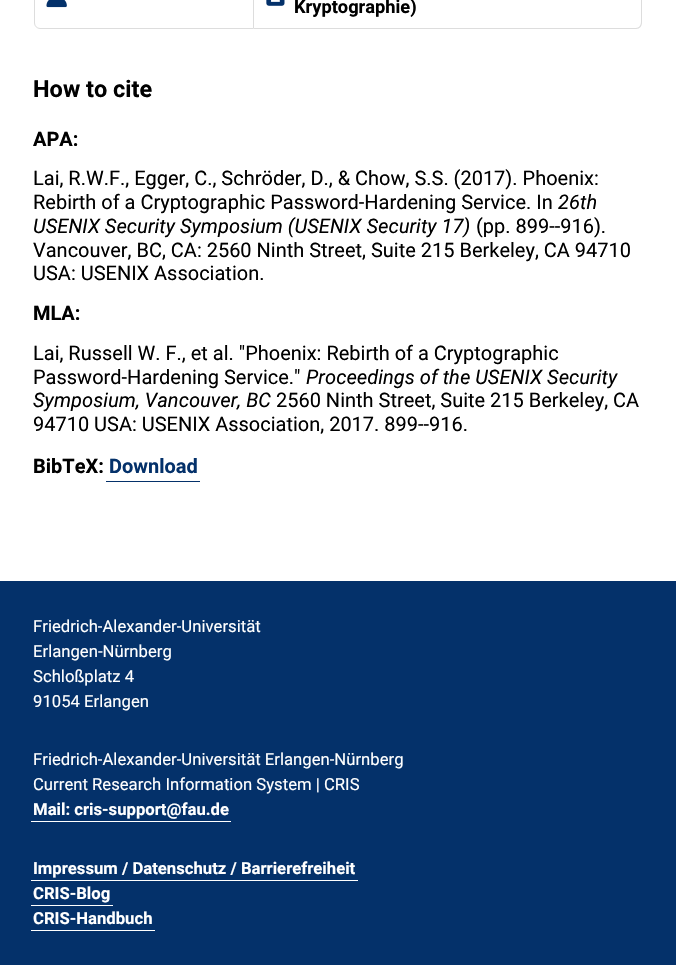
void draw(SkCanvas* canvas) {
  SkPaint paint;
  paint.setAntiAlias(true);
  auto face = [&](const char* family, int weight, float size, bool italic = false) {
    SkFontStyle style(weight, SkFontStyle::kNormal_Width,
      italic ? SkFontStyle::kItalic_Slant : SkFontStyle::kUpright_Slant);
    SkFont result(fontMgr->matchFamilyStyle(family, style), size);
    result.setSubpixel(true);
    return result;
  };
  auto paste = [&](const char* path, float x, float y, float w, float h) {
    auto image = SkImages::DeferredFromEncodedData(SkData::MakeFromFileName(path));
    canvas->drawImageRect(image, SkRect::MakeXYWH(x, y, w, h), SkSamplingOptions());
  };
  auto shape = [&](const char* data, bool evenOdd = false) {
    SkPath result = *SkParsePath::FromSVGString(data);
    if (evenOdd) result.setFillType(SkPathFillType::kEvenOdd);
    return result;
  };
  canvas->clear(0xffffffff);
  paint.setStroke(true);
  paint.setStrokeWidth(1);
  paint.setColor(0xffdddddd);
  canvas->drawPath(shape("M40-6.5H253.5V28.5H40C37 28.5 34.5 26 34.5 23V-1C34.5-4 37-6.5 40-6.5Z"), paint);
  paste("img/1.png", 46, 0, 21, 8);
  paint.setStroke(false);
  canvas->drawPath(shape("M254-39H636C640-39 642-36 642-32V22C642 26 640 29 636 29H254ZM254-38H636C639-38 641-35 641-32V22C641 25 639 28 636 28H254Z", true), paint);
  paste("img/2.png", 266, 0, 19, 6);
  {
    const struct { float x, y, w, h; SkColor color; } items[] = {
      {106, 481, 94, 1, 0xff04316a},
      {0, 581, 676, 384, 0xff04316a},
      {31, 821, 200, 1, 0xffffffff},
      {31, 880, 327, 1, 0xffffffff},
      {31, 905, 82, 1, 0xffffffff},
      {31, 930, 124, 1, 0xffffffff},
    };
    for (auto [x, y, w, h, color] : items) {
      paint.setColor(color);
      canvas->drawRect(SkRect::MakeXYWH(x, y, w, h), paint);
    }
  }
  auto f0 = face("Roboto", 700, 18.25f);
  paint.setColor(0xff000000);
  canvas->drawString("Kryptographie)", 294, 13, f0, paint);
  auto f1 = face("Roboto", 700, 23.5f);
  canvas->drawString("How to cite", 33, 97, f1, paint);
  auto f2 = face("Roboto", 700, 20);
  canvas->drawString("APA:", 33, 146, f2, paint);
  auto f3 = face("Roboto", 400, 20);
  canvas->drawString("Lai, R.W.F., Egger, C., Schröder, D., & Chow, S.S. (2017). Phoenix:", 33, 185, f3, paint);
  canvas->drawString("Rebirth of a Cryptographic Password-Hardening Service. In", 33, 209, f3, paint);
  auto f4 = face("Roboto", 400, 20, true);
  canvas->drawString("26th", 558, 209, f4, paint);
  canvas->drawString("USENIX Security Symposium (USENIX Security 17)", 33, 233, f4, paint);
  {
    const struct { const char* s; float x, y; } items[] = {
      {"(pp. 899--916).", 476, 233},
      {"Vancouver, BC, CA: 2560 Ninth Street, Suite 215 Berkeley, CA 94710", 33, 257},
      {"USA: USENIX Association.", 33, 280},
    };
    for (auto [s, x, y] : items) {
      canvas->drawString(s, x, y, f3, paint);
    }
  }
  canvas->drawString("MLA:", 33, 320, f2, paint);
  canvas->drawString("Lai, Russell W. F., et al. \"Phoenix: Rebirth of a Cryptographic", 33, 360, f3, paint);
  canvas->drawString("Password-Hardening Service.\"", 33, 384, f3, paint);
  canvas->drawString("Proceedings of the USENIX Security", 306, 384, f4, paint);
  canvas->drawString("Symposium, Vancouver, BC", 33, 407, f4, paint);
  canvas->drawString("2560 Ninth Street, Suite 215 Berkeley, CA", 276, 407, f3, paint);
  canvas->drawString("94710 USA: USENIX Association, 2017. 899--916.", 33, 431, f3, paint);
  canvas->drawString("BibTeX:", 33, 473, f2, paint);
  paint.setColor(0xff04316a);
  canvas->drawString("Download", 109, 473, f2, paint);
  auto f5 = face("Roboto", 400, 16.7f);
  paint.setColor(0xffffffff);
  {
    const struct { const char* s; float x, y; } items[] = {
      {"Friedrich-Alexander-Universität", 33, 632},
      {"Erlangen-Nürnberg", 33, 657},
      {"Schloßplatz 4", 33, 682},
      {"91054 Erlangen", 33, 707},
      {"Friedrich-Alexander-Universität Erlangen-Nürnberg", 33, 765},
      {"Current Research Information System | CRIS", 33, 790},
    };
    for (auto [s, x, y] : items) {
      canvas->drawString(s, x, y, f5, paint);
    }
  }
  auto f6 = face("Roboto", 700, 16.7f);
  {
    const struct { const char* s; float x, y; } items[] = {
      {"Mail: cris-support@fau.de", 33, 815},
      {"Impressum / Datenschutz / Barrierefreiheit", 33, 874},
      {"CRIS-Blog", 33, 899},
      {"CRIS-Handbuch", 33, 924},
    };
    for (auto [s, x, y] : items) {
      canvas->drawString(s, x, y, f6, paint);
    }
  }
}
